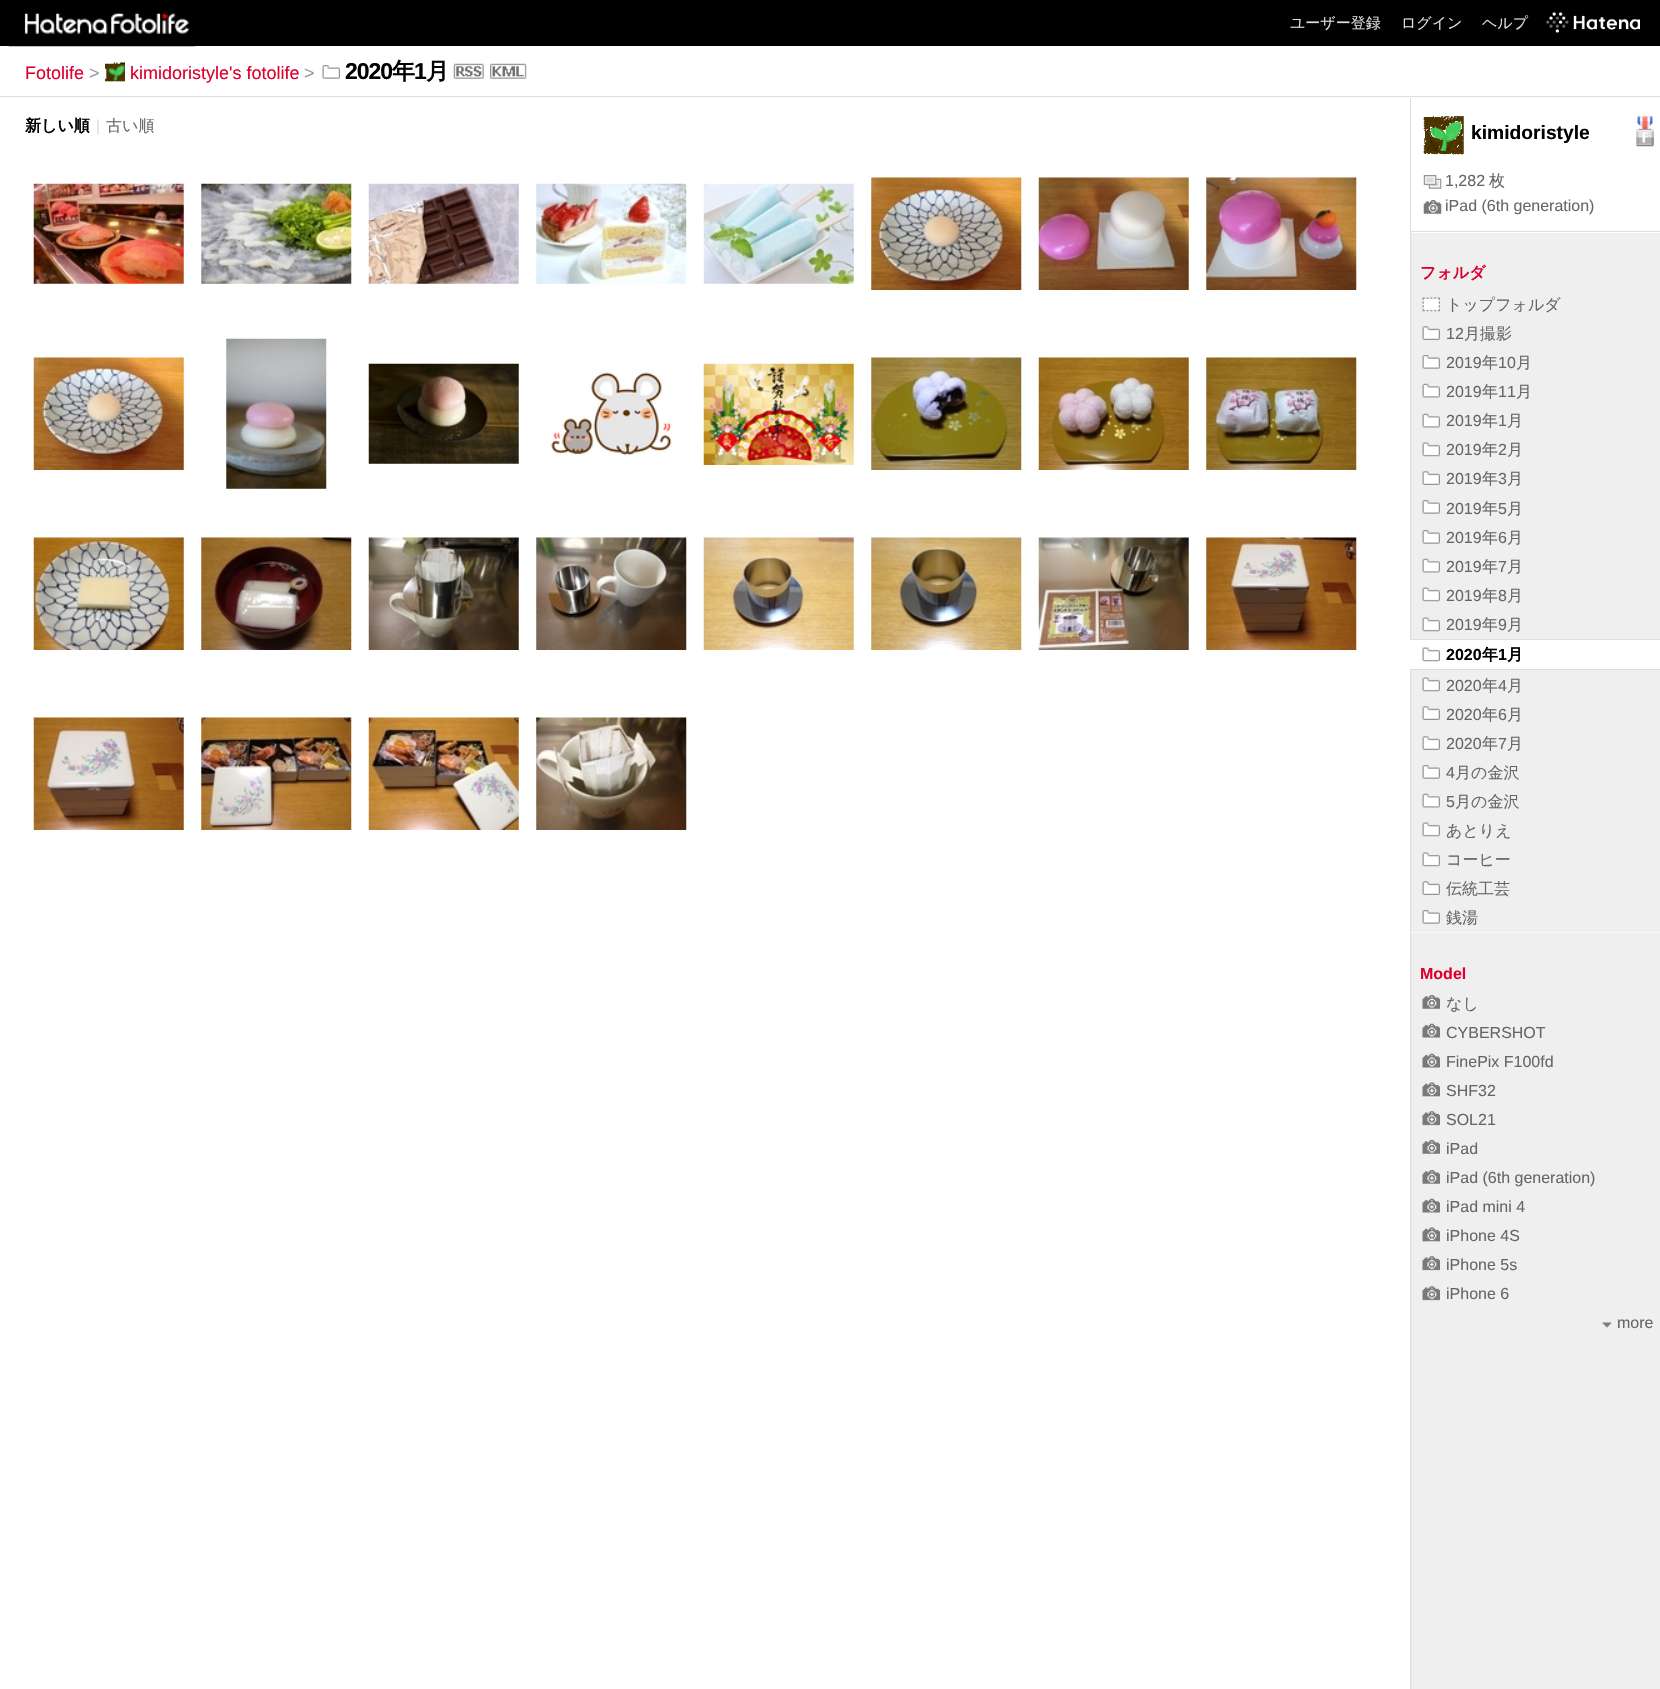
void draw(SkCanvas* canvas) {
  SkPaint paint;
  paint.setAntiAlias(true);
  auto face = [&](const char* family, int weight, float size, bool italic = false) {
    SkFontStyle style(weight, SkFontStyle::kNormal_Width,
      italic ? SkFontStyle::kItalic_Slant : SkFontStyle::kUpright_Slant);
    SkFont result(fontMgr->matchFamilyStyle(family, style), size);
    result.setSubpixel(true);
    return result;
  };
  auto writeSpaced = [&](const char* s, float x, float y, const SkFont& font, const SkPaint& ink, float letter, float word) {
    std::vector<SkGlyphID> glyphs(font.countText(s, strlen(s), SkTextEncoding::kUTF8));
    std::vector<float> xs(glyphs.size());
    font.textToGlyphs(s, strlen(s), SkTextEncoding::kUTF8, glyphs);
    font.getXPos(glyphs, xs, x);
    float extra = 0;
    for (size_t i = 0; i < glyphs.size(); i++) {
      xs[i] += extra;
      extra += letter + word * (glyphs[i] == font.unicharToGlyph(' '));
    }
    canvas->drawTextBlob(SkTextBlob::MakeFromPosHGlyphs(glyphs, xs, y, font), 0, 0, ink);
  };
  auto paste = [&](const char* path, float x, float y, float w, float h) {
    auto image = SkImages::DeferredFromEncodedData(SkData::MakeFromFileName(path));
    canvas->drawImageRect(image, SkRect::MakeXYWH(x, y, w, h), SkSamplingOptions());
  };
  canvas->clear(0xffffffff);
  paste("img/1.png", 1410, 98, 250, 1591);
  paint.setColor(0xff000000);
  canvas->drawRect(SkRect::MakeXYWH(0, 0, 1660, 46), paint);
  paste("img/2.png", 8, 13, 104, 34);
  paste("img/3.png", 111, 13, 84, 34);
  paste("img/4.png", 1546, 12, 94, 21);
  paint.setColor(0xffdedede);
  canvas->drawRect(SkRect::MakeXYWH(0, 96, 1660, 1), paint);
  paste("img/5.png", 105, 62, 20, 20);
  paste("img/6.png", 322, 65, 18, 14);
  paste("img/7.png", 453, 63, 31, 16);
  paste("img/8.png", 490, 63, 37, 16);
  paste("img/9.png", 33, 183, 151, 101);
  paste("img/10.png", 201, 183, 151, 101);
  paste("img/11.png", 368, 183, 151, 101);
  paste("img/12.png", 536, 183, 151, 101);
  paste("img/13.png", 703, 183, 151, 101);
  paste("img/14.png", 871, 177, 151, 113);
  paste("img/15.png", 1038, 177, 151, 113);
  paste("img/16.png", 1206, 177, 151, 113);
  paste("img/17.png", 33, 357, 151, 113);
  paste("img/18.png", 226, 338, 101, 151);
  paste("img/19.png", 368, 363, 151, 101);
  paste("img/20.png", 549, 370, 123, 86);
  paste("img/21.png", 703, 363, 151, 102);
  paste("img/22.png", 871, 357, 151, 113);
  paste("img/23.png", 1038, 357, 151, 113);
  paste("img/24.png", 1206, 357, 151, 113);
  paste("img/25.png", 33, 537, 151, 113);
  paste("img/26.png", 201, 537, 151, 113);
  paste("img/27.png", 368, 537, 151, 113);
  paste("img/28.png", 536, 537, 151, 113);
  paste("img/29.png", 703, 537, 151, 113);
  paste("img/30.png", 871, 537, 151, 113);
  paste("img/31.png", 1038, 537, 151, 113);
  paste("img/32.png", 1206, 537, 151, 113);
  paste("img/33.png", 33, 717, 151, 113);
  paste("img/34.png", 201, 717, 151, 113);
  paste("img/35.png", 368, 717, 151, 113);
  paste("img/36.png", 536, 717, 151, 113);
  paint.setColor(0xffffffff);
  canvas->drawRect(SkRect::MakeXYWH(1411, 98, 249, 135), paint);
  paint.setColor(0xffdedede);
  canvas->drawRect(SkRect::MakeXYWH(1411, 231, 249, 1), paint);
  paste("img/37.png", 1423, 116, 41, 39);
  paste("img/38.png", 1636, 116, 18, 31);
  paste("img/39.png", 1423, 175, 19, 14);
  paste("img/40.png", 1423, 200, 19, 14);
  paint.setColor(0xffffffff);
  canvas->drawRect(SkRect::MakeXYWH(1410, 932, 250, 1), paint);
  paste("img/41.png", 1410, 290, 250, 643);
  paste("img/42.png", 1422, 297, 18, 15);
  paste("img/43.png", 1422, 326, 18, 14);
  paste("img/44.png", 1422, 355, 18, 14);
  paste("img/45.png", 1422, 383, 18, 15);
  paste("img/45.png", 1422, 413, 18, 15);
  paste("img/46.png", 1422, 442, 18, 15);
  paste("img/43.png", 1422, 471, 18, 14);
  paste("img/44.png", 1422, 500, 18, 14);
  paste("img/44.png", 1422, 530, 18, 14);
  paste("img/45.png", 1422, 558, 18, 15);
  paste("img/46.png", 1422, 587, 18, 15);
  paste("img/46.png", 1422, 617, 18, 15);
  {
    const struct { float x, y, w, h; SkColor color; } items[] = {
      {1410, 640, 250, 29, 0xffffffff},
      {1410, 639, 250, 1, 0xffdedede},
      {1410, 669, 250, 1, 0xffdedede},
    };
    for (auto [x, y, w, h, color] : items) {
      paint.setColor(color);
      canvas->drawRect(SkRect::MakeXYWH(x, y, w, h), paint);
    }
  }
  paste("img/47.png", 1422, 647, 18, 15);
  paste("img/46.png", 1422, 677, 18, 15);
  paste("img/43.png", 1422, 706, 18, 14);
  paste("img/43.png", 1422, 736, 18, 14);
  paste("img/44.png", 1422, 765, 18, 14);
  paste("img/45.png", 1422, 793, 18, 15);
  paste("img/46.png", 1422, 822, 18, 15);
  paste("img/46.png", 1422, 852, 18, 15);
  paste("img/43.png", 1422, 881, 18, 14);
  paste("img/44.png", 1422, 910, 18, 14);
  paste("img/48.png", 1422, 995, 18, 14);
  paste("img/49.png", 1422, 1023, 18, 15);
  paste("img/50.png", 1422, 1053, 18, 15);
  paste("img/51.png", 1422, 1082, 18, 15);
  paste("img/52.png", 1422, 1111, 18, 15);
  paste("img/48.png", 1422, 1140, 18, 14);
  paste("img/53.png", 1422, 1170, 18, 14);
  paste("img/50.png", 1422, 1198, 18, 15);
  paste("img/51.png", 1422, 1227, 18, 15);
  paste("img/52.png", 1422, 1256, 18, 15);
  paste("img/52.png", 1422, 1286, 18, 15);
  paste("img/54.png", 1602, 1322, 10, 6);
  auto f0 = face("WenQuanYi Zen Hei", 500, 15);
  {
    const struct { const char* s; float x, y; } items[] = {
      {"ユーザー登録", 1290, 28},
      {"ログイン", 1401, 28},
      {"ヘルプ", 1482, 28},
    };
    for (auto [s, x, y] : items) {
      canvas->drawString(s, x, y, f0, paint);
    }
  }
  auto f1 = face("Liberation Sans", 400, 18);
  paint.setColor(0xffde002f);
  canvas->drawString("Fotolife", 25, 79, f1, paint);
  paint.setColor(0xff999999);
  canvas->drawString(">", 89, 79, f1, paint);
  paint.setColor(0xffde002f);
  canvas->drawString("kimidoristyle's fotolife", 130, 79, f1, paint);
  paint.setColor(0xff999999);
  canvas->drawString(">", 304, 79, f1, paint);
  auto f2 = face("Liberation Sans", 700, 23);
  paint.setColor(0xff000000);
  writeSpaced("2020", 345, 79, f2, paint, -1, 0);
  auto f3 = face("WenQuanYi Zen Hei", 700, 23);
  writeSpaced("年", 392, 79, f3, paint, -1, 0);
  writeSpaced("1", 414, 79, f2, paint, -1, 0);
  writeSpaced("月", 426, 79, f3, paint, -1, 0);
  auto f4 = face("WenQuanYi Zen Hei", 700, 16);
  canvas->drawString("新しい順", 25, 131, f4, paint);
  auto f5 = face("Liberation Sans", 400, 16);
  paint.setColor(0xffdedede);
  canvas->drawString("|", 96, 131, f5, paint);
  auto f6 = face("WenQuanYi Zen Hei", 500, 16);
  paint.setColor(0xff666666);
  canvas->drawString("古い順", 106, 131, f6, paint);
  auto f7 = face("Liberation Sans", 700, 19.25f);
  paint.setColor(0xff000000);
  canvas->drawString("kimidoristyle", 1471, 139, f7, paint);
  paint.setColor(0xff666666);
  canvas->drawString("1,282", 1445, 186, f5, paint);
  canvas->drawString("枚", 1489, 186, f6, paint);
  canvas->drawString("iPad (6th generation)", 1445, 211, f5, paint);
  paint.setColor(0xffde002f);
  canvas->drawString("フォルダ", 1420, 278, f4, paint);
  paint.setColor(0xff666666);
  canvas->drawString("トップフォルダ", 1446, 310, f6, paint);
  canvas->drawString("12", 1446, 339, f5, paint);
  canvas->drawString("月撮影", 1464, 339, f6, paint);
  canvas->drawString("2019", 1446, 368, f5, paint);
  canvas->drawString("年", 1482, 368, f6, paint);
  canvas->drawString("10", 1498, 368, f5, paint);
  canvas->drawString("月", 1516, 368, f6, paint);
  canvas->drawString("2019", 1446, 397, f5, paint);
  canvas->drawString("年", 1482, 397, f6, paint);
  canvas->drawString("11", 1498, 397, f5, paint);
  canvas->drawString("月", 1516, 397, f6, paint);
  canvas->drawString("2019", 1446, 426, f5, paint);
  canvas->drawString("年", 1482, 426, f6, paint);
  canvas->drawString("1", 1498, 426, f5, paint);
  canvas->drawString("月", 1507, 426, f6, paint);
  canvas->drawString("2019", 1446, 455, f5, paint);
  canvas->drawString("年", 1482, 455, f6, paint);
  canvas->drawString("2", 1498, 455, f5, paint);
  canvas->drawString("月", 1507, 455, f6, paint);
  canvas->drawString("2019", 1446, 484, f5, paint);
  canvas->drawString("年", 1482, 484, f6, paint);
  canvas->drawString("3", 1498, 484, f5, paint);
  canvas->drawString("月", 1507, 484, f6, paint);
  canvas->drawString("2019", 1446, 514, f5, paint);
  canvas->drawString("年", 1482, 514, f6, paint);
  canvas->drawString("5", 1498, 514, f5, paint);
  canvas->drawString("月", 1507, 514, f6, paint);
  canvas->drawString("2019", 1446, 543, f5, paint);
  canvas->drawString("年", 1482, 543, f6, paint);
  canvas->drawString("6", 1498, 543, f5, paint);
  canvas->drawString("月", 1507, 543, f6, paint);
  canvas->drawString("2019", 1446, 572, f5, paint);
  canvas->drawString("年", 1482, 572, f6, paint);
  canvas->drawString("7", 1498, 572, f5, paint);
  canvas->drawString("月", 1507, 572, f6, paint);
  canvas->drawString("2019", 1446, 601, f5, paint);
  canvas->drawString("年", 1482, 601, f6, paint);
  canvas->drawString("8", 1498, 601, f5, paint);
  canvas->drawString("月", 1507, 601, f6, paint);
  canvas->drawString("2019", 1446, 630, f5, paint);
  canvas->drawString("年", 1482, 630, f6, paint);
  canvas->drawString("9", 1498, 630, f5, paint);
  canvas->drawString("月", 1507, 630, f6, paint);
  auto f8 = face("Liberation Sans", 700, 16);
  paint.setColor(0xff000000);
  canvas->drawString("2020", 1446, 660, f8, paint);
  canvas->drawString("年", 1482, 660, f4, paint);
  canvas->drawString("1", 1498, 660, f8, paint);
  canvas->drawString("月", 1507, 660, f4, paint);
  paint.setColor(0xff666666);
  canvas->drawString("2020", 1446, 691, f5, paint);
  canvas->drawString("年", 1482, 691, f6, paint);
  canvas->drawString("4", 1498, 691, f5, paint);
  canvas->drawString("月", 1507, 691, f6, paint);
  canvas->drawString("2020", 1446, 720, f5, paint);
  canvas->drawString("年", 1482, 720, f6, paint);
  canvas->drawString("6", 1498, 720, f5, paint);
  canvas->drawString("月", 1507, 720, f6, paint);
  canvas->drawString("2020", 1446, 749, f5, paint);
  canvas->drawString("年", 1482, 749, f6, paint);
  canvas->drawString("7", 1498, 749, f5, paint);
  canvas->drawString("月", 1507, 749, f6, paint);
  canvas->drawString("4", 1446, 778, f5, paint);
  canvas->drawString("月の金沢", 1455, 778, f6, paint);
  canvas->drawString("5", 1446, 807, f5, paint);
  {
    const struct { const char* s; float x, y; } items[] = {
      {"月の金沢", 1455, 807},
      {"あとりえ", 1446, 836},
      {"コーヒー", 1446, 865},
      {"伝統工芸", 1446, 894},
      {"銭湯", 1446, 923},
    };
    for (auto [s, x, y] : items) {
      canvas->drawString(s, x, y, f6, paint);
    }
  }
  paint.setColor(0xffde002f);
  canvas->drawString("Model", 1420, 979, f8, paint);
  paint.setColor(0xff666666);
  canvas->drawString("なし", 1446, 1009, f6, paint);
  {
    const struct { const char* s; float x, y; } items[] = {
      {"CYBERSHOT", 1446, 1038},
      {"FinePix F100fd", 1446, 1067},
      {"SHF32", 1446, 1096},
      {"SOL21", 1446, 1125},
      {"iPad", 1446, 1154},
      {"iPad (6th generation)", 1446, 1183},
      {"iPad mini 4", 1446, 1212},
      {"iPhone 4S", 1446, 1241},
      {"iPhone 5s", 1446, 1270},
      {"iPhone 6", 1446, 1299},
      {"more", 1617, 1328},
    };
    for (auto [s, x, y] : items) {
      canvas->drawString(s, x, y, f5, paint);
    }
  }
}
